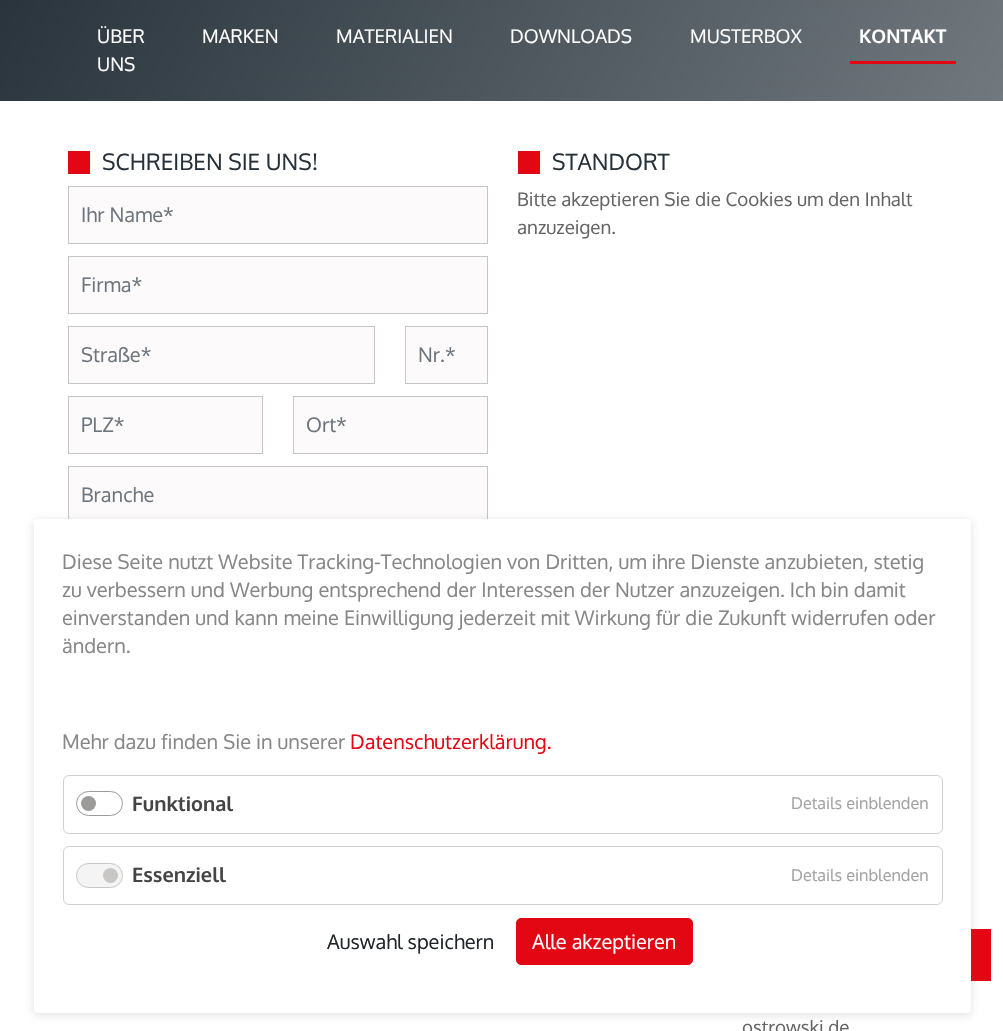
void draw(SkCanvas* canvas) {
  SkPaint paint;
  paint.setAntiAlias(true);
  auto face = [&](const char* family, int weight, float size, bool italic = false) {
    SkFontStyle style(weight, SkFontStyle::kNormal_Width,
      italic ? SkFontStyle::kItalic_Slant : SkFontStyle::kUpright_Slant);
    SkFont result(fontMgr->matchFamilyStyle(family, style), size);
    result.setSubpixel(true);
    return result;
  };
  canvas->clear(0xffffffff);
  {
    const SkColor colors[] = {0xff29343c, 0xff71787e};
    const float stops[] = {0, 1};
    const SkPoint ends[] = {{111, -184}, {893, 286}};
    paint.setShader(SkGradientShader::MakeLinear(ends, colors, stops, 2, SkTileMode::kClamp));
    paint.setAlpha(255);
  }
  canvas->drawRect(SkRect::MakeXYWH(0, 0, 1003, 101), paint);
  paint.setShader(nullptr);
  paint.setColor(0xffe30613);
  canvas->drawRect(SkRect::MakeXYWH(850, 61, 106, 3), paint);
  canvas->drawRect(SkRect::MakeXYWH(68, 151, 22, 23), paint);
  paint.setColor(0xfffcfafa);
  canvas->drawRect(SkRect::MakeXYWH(68.5f, 186.5f, 419, 57), paint);
  paint.setStroke(true);
  paint.setStrokeWidth(1);
  paint.setColor(0xffc5c5c5);
  canvas->drawRect(SkRect::MakeXYWH(68.5f, 186.5f, 419, 57), paint);
  paint.setStroke(false);
  paint.setColor(0xfffcfafa);
  canvas->drawRect(SkRect::MakeXYWH(68.5f, 256.5f, 419, 57), paint);
  paint.setStroke(true);
  paint.setColor(0xffc5c5c5);
  canvas->drawRect(SkRect::MakeXYWH(68.5f, 256.5f, 419, 57), paint);
  paint.setStroke(false);
  paint.setColor(0xfffcfafa);
  canvas->drawRect(SkRect::MakeXYWH(68.5f, 326.5f, 306, 57), paint);
  paint.setStroke(true);
  paint.setColor(0xffc5c5c5);
  canvas->drawRect(SkRect::MakeXYWH(68.5f, 326.5f, 306, 57), paint);
  paint.setStroke(false);
  paint.setColor(0xfffcfafa);
  canvas->drawRect(SkRect::MakeXYWH(405.5f, 326.5f, 82, 57), paint);
  paint.setStroke(true);
  paint.setColor(0xffc5c5c5);
  canvas->drawRect(SkRect::MakeXYWH(405.5f, 326.5f, 82, 57), paint);
  paint.setStroke(false);
  paint.setColor(0xfffcfafa);
  canvas->drawRect(SkRect::MakeXYWH(68.5f, 396.5f, 194, 57), paint);
  paint.setStroke(true);
  paint.setColor(0xffc5c5c5);
  canvas->drawRect(SkRect::MakeXYWH(68.5f, 396.5f, 194, 57), paint);
  paint.setStroke(false);
  paint.setColor(0xfffcfafa);
  canvas->drawRect(SkRect::MakeXYWH(293.5f, 396.5f, 194, 57), paint);
  paint.setStroke(true);
  paint.setColor(0xffc5c5c5);
  canvas->drawRect(SkRect::MakeXYWH(293.5f, 396.5f, 194, 57), paint);
  paint.setStroke(false);
  paint.setColor(0xfffcfafa);
  canvas->drawRect(SkRect::MakeXYWH(69, 467, 418, 52), paint);
  paint.setStroke(true);
  paint.setColor(0xffc5c5c5);
  canvas->drawRect(SkRect::MakeXYWH(68.5f, 466.5f, 419, 57), paint);
  paint.setStroke(false);
  paint.setColor(0xffe30613);
  canvas->drawRect(SkRect::MakeXYWH(518, 151, 22, 23), paint);
  canvas->drawRect(SkRect::MakeXYWH(971, 929, 20, 52), paint);
  paint.setColor(0x33636363);
  paint.setMaskFilter(SkMaskFilter::MakeBlur(kNormal_SkBlurStyle, 5));
  canvas->drawRoundRect(SkRect::MakeXYWH(34, 521, 937, 494), 4, 4, paint);
  paint.setMaskFilter(nullptr);
  paint.setColor(0xffffffff);
  canvas->drawRoundRect(SkRect::MakeXYWH(34, 519, 937, 494), 4, 4, paint);
  paint.setStroke(true);
  paint.setColor(0xffd0d0d0);
  canvas->drawRoundRect(SkRect::MakeXYWH(63.5f, 775.5f, 879, 58), 5.5f, 5.5f, paint);
  paint.setColor(0xff9c9b99);
  canvas->drawRoundRect(SkRect::MakeXYWH(76.5f, 791.5f, 46, 24), 12, 12, paint);
  paint.setStroke(false);
  canvas->drawCircle(88.5f, 803.5f, 7.5f, paint);
  paint.setStroke(true);
  paint.setColor(0xffd0d0d0);
  canvas->drawRoundRect(SkRect::MakeXYWH(63.5f, 846.5f, 879, 58), 5.5f, 5.5f, paint);
  paint.setStroke(false);
  paint.setColor(0xfff4f4f4);
  canvas->drawRoundRect(SkRect::MakeXYWH(76.5f, 863.5f, 46, 24), 12, 12, paint);
  paint.setStroke(true);
  paint.setColor(0xffc8c7c5);
  canvas->drawRoundRect(SkRect::MakeXYWH(76.5f, 863.5f, 46, 24), 12, 12, paint);
  paint.setStroke(false);
  canvas->drawCircle(110.5f, 875.5f, 7.5f, paint);
  paint.setColor(0xffe30613);
  canvas->drawRoundRect(SkRect::MakeXYWH(516.5f, 918.5f, 176, 46), 4.5f, 4.5f, paint);
  paint.setStroke(true);
  canvas->drawRoundRect(SkRect::MakeXYWH(516.5f, 918.5f, 176, 46), 4.5f, 4.5f, paint);
  auto f0 = face("Oxygen", 400, 18.75f);
  paint.setStroke(false);
  paint.setColor(0xffffffff);
  {
    const struct { const char* s; float x, y; } items[] = {
      {"ÜBER", 97, 43},
      {"UNS", 97, 71},
      {"MARKEN", 202, 43},
      {"MATERIALIEN", 336, 43},
      {"DOWNLOADS", 510, 43},
      {"MUSTERBOX", 690, 43},
    };
    for (auto [s, x, y] : items) {
      canvas->drawString(s, x, y, f0, paint);
    }
  }
  auto f1 = face("Oxygen", 700, 18.75f);
  canvas->drawString("KONTAKT", 859, 43, f1, paint);
  auto f2 = face("Oxygen", 400, 22.5f);
  paint.setColor(0xff253038);
  canvas->drawString("SCHREIBEN SIE UNS!", 102, 170, f2, paint);
  auto f3 = face("Oxygen", 400, 20);
  paint.setColor(0xff6c757d);
  {
    const struct { const char* s; float x, y; } items[] = {
      {"Ihr Name*", 81, 222},
      {"Firma*", 81, 292},
      {"Straße*", 81, 362},
      {"Nr.*", 418, 362},
      {"PLZ*", 81, 432},
      {"Ort*", 306, 432},
      {"Branche", 81, 502},
    };
    for (auto [s, x, y] : items) {
      canvas->drawString(s, x, y, f3, paint);
    }
  }
  paint.setColor(0xff253038);
  canvas->drawString("STANDORT", 552, 170, f2, paint);
  paint.setColor(0xff646464);
  {
    const struct { const char* s; float x, y; } items[] = {
      {"Bitte akzeptieren Sie die Cookies um den Inhalt", 517, 206},
      {"anzuzeigen.", 517, 234},
      {"ostrowski.de", 742, 1034},
    };
    for (auto [s, x, y] : items) {
      canvas->drawString(s, x, y, f0, paint);
    }
  }
  paint.setColor(0xff868686);
  {
    const struct { const char* s; float x, y; } items[] = {
      {"Diese Seite nutzt Website Tracking-Technologien von Dritten, um ihre Dienste anzubieten, stetig", 62, 569},
      {"zu verbessern und Werbung entsprechend der Interessen der Nutzer anzuzeigen. Ich bin damit", 62, 597},
      {"einverstanden und kann meine Einwilligung jederzeit mit Wirkung für die Zukunft widerrufen oder", 62, 625},
      {"ändern.", 62, 653},
      {"Mehr dazu finden Sie in unserer", 62, 749},
    };
    for (auto [s, x, y] : items) {
      canvas->drawString(s, x, y, f3, paint);
    }
  }
  paint.setColor(0xffe30613);
  canvas->drawString("Datenschutzerklärung.", 350, 749, f3, paint);
  auto f4 = face("Oxygen", 700, 20);
  paint.setColor(0xff444444);
  canvas->drawString("Funktional", 132, 811, f4, paint);
  auto f5 = face("Oxygen", 400, 16.25f);
  paint.setColor(0xffa2a2a2);
  canvas->drawString("Details einblenden", 791, 809, f5, paint);
  paint.setColor(0xff444444);
  canvas->drawString("Essenziell", 132, 882, f4, paint);
  paint.setColor(0xffa2a2a2);
  canvas->drawString("Details einblenden", 791, 881, f5, paint);
  paint.setColor(0xff212529);
  canvas->drawString("Auswahl speichern", 327, 949, f3, paint);
  paint.setColor(0xffffffff);
  canvas->drawString("Alle akzeptieren", 532, 949, f3, paint);
}
